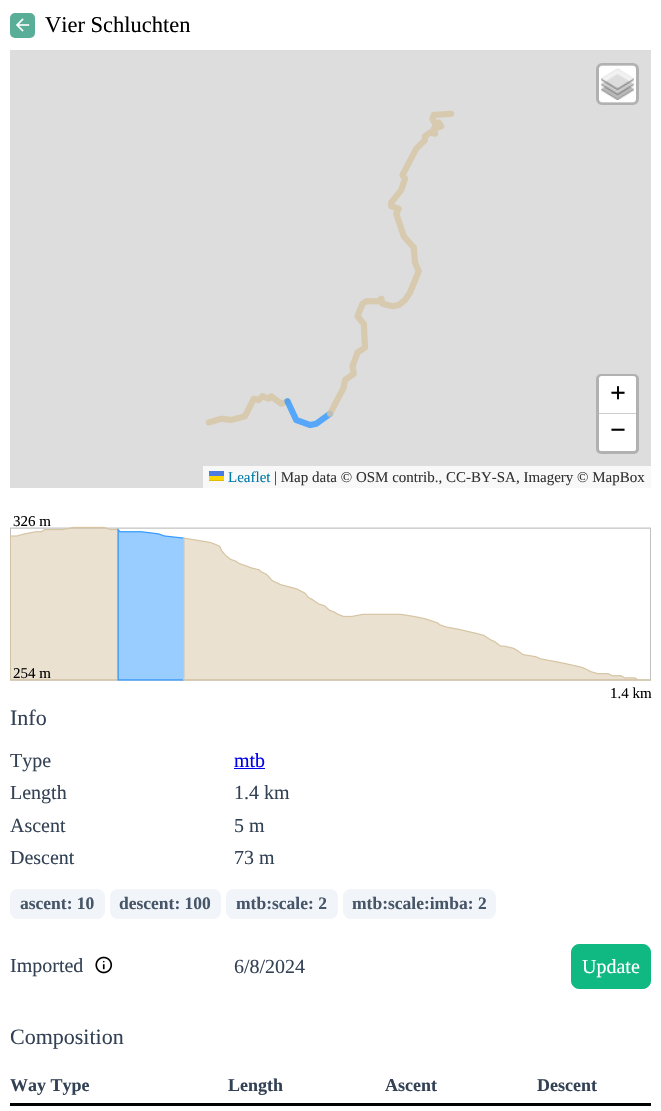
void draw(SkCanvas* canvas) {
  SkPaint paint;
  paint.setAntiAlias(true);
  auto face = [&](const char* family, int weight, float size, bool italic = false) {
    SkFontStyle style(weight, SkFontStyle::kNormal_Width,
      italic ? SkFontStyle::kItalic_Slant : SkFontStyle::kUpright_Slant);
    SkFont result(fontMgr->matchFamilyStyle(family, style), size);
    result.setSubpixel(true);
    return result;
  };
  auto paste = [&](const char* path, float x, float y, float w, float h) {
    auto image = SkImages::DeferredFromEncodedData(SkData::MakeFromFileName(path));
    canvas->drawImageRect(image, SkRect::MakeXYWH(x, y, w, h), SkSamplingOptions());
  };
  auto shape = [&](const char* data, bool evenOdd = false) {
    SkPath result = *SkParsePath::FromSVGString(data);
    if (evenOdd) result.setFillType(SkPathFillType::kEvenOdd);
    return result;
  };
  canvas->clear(0xffffffff);
  paint.setColor(0xff5aad97);
  canvas->drawRoundRect(SkRect::MakeXYWH(10, 13, 25, 25), 5, 5, paint);
  paste("img/1.png", 16, 18, 14, 14);
  paint.setColor(0xffdddddd);
  canvas->drawRect(SkRect::MakeXYWH(10, 50, 641, 438), paint);
  paste("img/2.png", 205, 110, 250, 319);
  paint.setColor(0xffffffff);
  canvas->drawRoundRect(SkRect::MakeXYWH(599, 65, 37, 38), 4, 4, paint);
  paint.setStroke(true);
  paint.setStrokeWidth(3);
  paint.setColor(0x33000000);
  canvas->drawRoundRect(SkRect::MakeXYWH(597.5f, 64.5f, 40, 39), 4.5f, 4.5f, paint);
  paste("img/3.png", 601, 68, 33, 32);
  paint.setColor(0xffb1b1b1);
  canvas->drawRoundRect(SkRect::MakeXYWH(597.5f, 375.5f, 40, 77), 3.5f, 3.5f, paint);
  paint.setStroke(false);
  paint.setColor(0xffffffff);
  canvas->drawPath(shape("M601.5 376H633.5C635 376 636 377 636 378.5V414H599V378.5C599 377 600 376 601.5 376Z"), paint);
  paint.setColor(0xffcccccc);
  canvas->drawRect(SkRect::MakeXYWH(599, 413, 37, 1), paint);
  paint.setColor(0xffffffff);
  canvas->drawPath(shape("M599 414H636V448.5C636 450 635 451 633.5 451H601.5C600 451 599 450 599 448.5Z"), paint);
  {
    const struct { float x, y, w, h; SkColor color; } items[] = {
      {203, 466, 448, 22, 0xfff8f8f8},
      {209, 471, 15, 5, 0xff4c7be1},
      {209, 476, 15, 4, 0xffffd500},
      {209, 480, 15, 1, 0xffe0bc00},
    };
    for (auto [x, y, w, h, color] : items) {
      paint.setColor(color);
      canvas->drawRect(SkRect::MakeXYWH(x, y, w, h), paint);
    }
  }
  paste("img/4.png", 10, 526, 641, 155);
  paint.setColor(0xff0000ee);
  canvas->drawRect(SkRect::MakeXYWH(234, 768, 31, 1), paint);
  paint.setColor(0xfff1f5f9);
  canvas->drawRoundRect(SkRect::MakeXYWH(10, 889, 95, 30), 8, 8, paint);
  canvas->drawRoundRect(SkRect::MakeXYWH(110, 889, 111, 30), 8, 8, paint);
  canvas->drawRoundRect(SkRect::MakeXYWH(226, 889, 112, 30), 8, 8, paint);
  canvas->drawRoundRect(SkRect::MakeXYWH(343, 889, 153, 30), 8, 8, paint);
  paste("img/5.png", 95, 956, 18, 18);
  paint.setColor(0xff10b981);
  canvas->drawRoundRect(SkRect::MakeXYWH(571.5f, 944.5f, 79, 44), 7.5f, 7.5f, paint);
  paint.setStroke(true);
  paint.setStrokeWidth(1);
  canvas->drawRoundRect(SkRect::MakeXYWH(571.5f, 944.5f, 79, 44), 7.5f, 7.5f, paint);
  paint.setStroke(false);
  paint.setColor(0xff000000);
  canvas->drawRect(SkRect::MakeXYWH(10, 1103, 641, 3), paint);
  auto f0 = face("Liberation Serif", 400, 22.5f);
  canvas->drawString("Vier Schluchten", 45, 32, f0, paint);
  auto f1 = face("Liberation Serif", 700, 28);
  canvas->drawString("+", 610, 402, f1, paint);
  canvas->drawString("−", 610, 439, f1, paint);
  auto f2 = face("Liberation Serif", 400, 15);
  paint.setColor(0xff0078a8);
  canvas->drawString("Leaflet", 228, 482, f2, paint);
  paint.setColor(0xff333333);
  canvas->drawString("| Map data © OSM contrib., CC-BY-SA, Imagery © MapBox", 274, 482, f2, paint);
  paint.setColor(0xff000000);
  {
    const struct { const char* s; float x, y; } items[] = {
      {"326 m", 13, 526},
      {"254 m", 13, 678},
      {"1.4 km", 610, 698},
    };
    for (auto [s, x, y] : items) {
      canvas->drawString(s, x, y, f2, paint);
    }
  }
  auto f3 = face("Liberation Serif", 400, 22);
  paint.setColor(0xff334155);
  canvas->drawString("Info", 10, 725, f3, paint);
  auto f4 = face("Liberation Serif", 400, 20);
  canvas->drawString("Type", 10, 767, f4, paint);
  paint.setColor(0xff0000ee);
  canvas->drawString("mtb", 234, 767, f4, paint);
  paint.setColor(0xff334155);
  {
    const struct { const char* s; float x, y; } items[] = {
      {"Length", 10, 799},
      {"1.4 km", 234, 799},
      {"Ascent", 10, 832},
      {"5 m", 234, 832},
      {"Descent", 10, 864},
      {"73 m", 234, 864},
    };
    for (auto [s, x, y] : items) {
      canvas->drawString(s, x, y, f4, paint);
    }
  }
  auto f5 = face("Liberation Serif", 700, 17.5f);
  paint.setColor(0xff475569);
  {
    const struct { const char* s; float x, y; } items[] = {
      {"ascent: 10", 20, 909},
      {"descent: 100", 119, 909},
      {"mtb:scale: 2", 236, 909},
      {"mtb:scale:imba: 2", 352, 909},
    };
    for (auto [s, x, y] : items) {
      canvas->drawString(s, x, y, f5, paint);
    }
  }
  paint.setColor(0xff334155);
  canvas->drawString("Imported", 10, 972, f4, paint);
  canvas->drawString("6/8/2024", 234, 973, f4, paint);
  paint.setColor(0xffffffff);
  canvas->drawString("Update", 582, 973, f4, paint);
  paint.setColor(0xff334155);
  canvas->drawString("Composition", 10, 1044, f3, paint);
  auto f6 = face("Liberation Serif", 700, 18);
  {
    const struct { const char* s; float x, y; } items[] = {
      {"Way Type", 10, 1091},
      {"Length", 228, 1091},
      {"Ascent", 385, 1091},
      {"Descent", 537, 1091},
    };
    for (auto [s, x, y] : items) {
      canvas->drawString(s, x, y, f6, paint);
    }
  }
}
